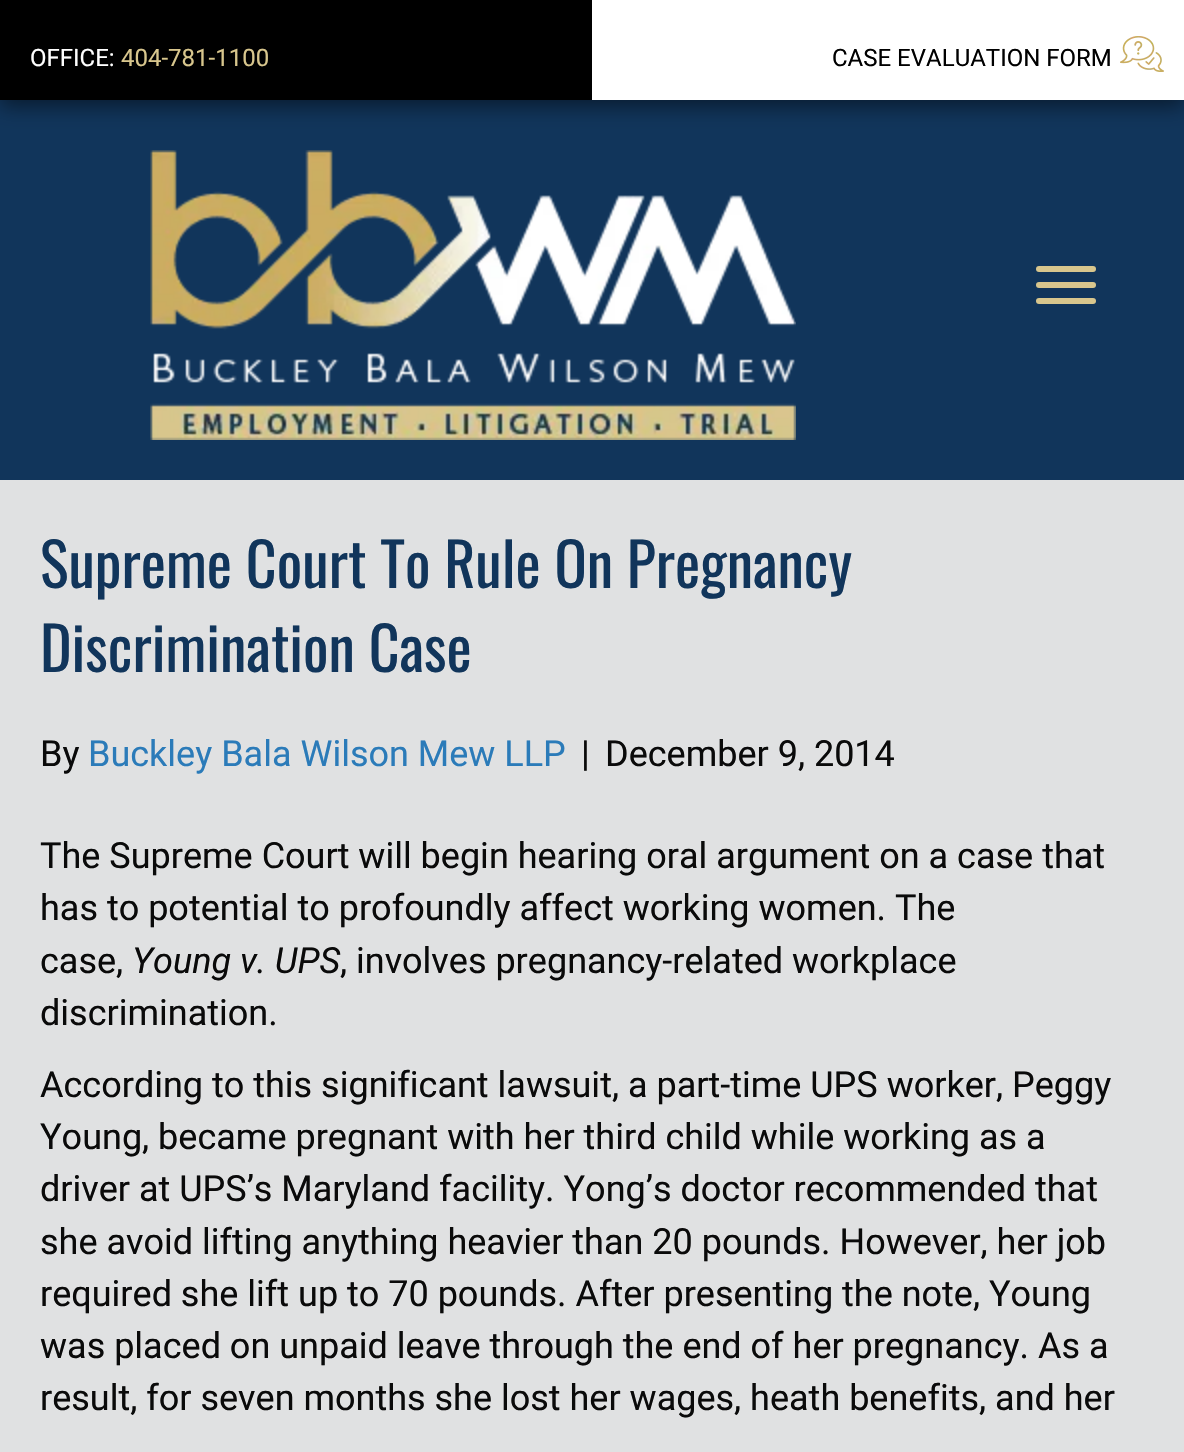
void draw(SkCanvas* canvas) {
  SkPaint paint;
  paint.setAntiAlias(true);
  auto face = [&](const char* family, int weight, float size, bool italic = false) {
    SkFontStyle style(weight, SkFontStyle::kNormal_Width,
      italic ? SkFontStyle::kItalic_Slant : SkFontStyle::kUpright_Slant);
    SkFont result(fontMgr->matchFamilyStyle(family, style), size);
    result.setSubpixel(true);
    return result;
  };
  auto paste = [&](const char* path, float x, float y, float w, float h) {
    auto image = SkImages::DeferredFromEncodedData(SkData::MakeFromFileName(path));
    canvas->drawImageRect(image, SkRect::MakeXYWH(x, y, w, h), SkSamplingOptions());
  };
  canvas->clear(0xffe0e1e2);
  paint.setColor(0xff11355b);
  canvas->drawRect(SkRect::MakeXYWH(0, 100, 1184, 380), paint);
  paint.setColor(0x80000000);
  paint.setMaskFilter(SkMaskFilter::MakeBlur(kNormal_SkBlurStyle, 10));
  canvas->drawRect(SkRect::MakeXYWH(0, 6, 1184, 100), paint);
  paint.setMaskFilter(nullptr);
  paint.setColor(0xff000000);
  canvas->drawRect(SkRect::MakeXYWH(0, 0, 592, 100), paint);
  paint.setColor(0xffffffff);
  canvas->drawRect(SkRect::MakeXYWH(592, 0, 592, 100), paint);
  paste("img/1.png", 1120, 36, 44, 36);
  paste("img/2.png", 150, 150, 646, 290);
  paint.setColor(0xffd8c68d);
  canvas->drawRoundRect(SkRect::MakeXYWH(1036, 282, 60, 6), 3, 3, paint);
  canvas->drawRoundRect(SkRect::MakeXYWH(1036, 266, 60, 6), 3, 3, paint);
  canvas->drawRoundRect(SkRect::MakeXYWH(1036, 298, 60, 6), 3, 3, paint);
  auto f0 = face("Roboto", 400, 24);
  paint.setColor(0xffffffff);
  canvas->drawString("OFFICE:", 30, 66, f0, paint);
  paint.setColor(0xffd8c68d);
  canvas->drawString("404-781-1100", 121, 66, f0, paint);
  paint.setColor(0xff000000);
  canvas->drawString("CASE EVALUATION FORM", 832, 66, f0, paint);
  auto f1 = face("Oswald", 400, 60);
  paint.setColor(0xff11355b);
  canvas->drawString("Supreme Court To Rule On Pregnancy", 40, 588, f1, paint);
  canvas->drawString("Discrimination Case", 40, 672, f1, paint);
  auto f2 = face("Roboto", 400, 36);
  paint.setColor(0xff0a0a0a);
  canvas->drawString("By", 40, 766, f2, paint);
  paint.setColor(0xff2b7bb9);
  canvas->drawString("Buckley Bala Wilson Mew LLP", 88, 766, f2, paint);
  paint.setColor(0xff0a0a0a);
  {
    const struct { const char* s; float x, y; } items[] = {
      {"|", 581, 766},
      {"December 9, 2014", 605, 766},
      {"The Supreme Court will begin hearing oral argument on a case that", 40, 868},
      {"has to potential to profoundly affect working women. The", 40, 920},
      {"case,", 40, 973},
    };
    for (auto [s, x, y] : items) {
      canvas->drawString(s, x, y, f2, paint);
    }
  }
  auto f3 = face("Roboto", 400, 36, true);
  canvas->drawString("Young v. UPS", 132, 973, f3, paint);
  {
    const struct { const char* s; float x, y; } items[] = {
      {", involves pregnancy-related workplace", 340, 973},
      {"discrimination.", 40, 1025},
      {"According to this significant lawsuit, a part-time UPS worker, Peggy", 40, 1097},
      {"Young, became pregnant with her third child while working as a", 40, 1149},
      {"driver at UPS’s Maryland facility. Yong’s doctor recommended that", 40, 1201},
      {"she avoid lifting anything heavier than 20 pounds. However, her job", 40, 1254},
      {"required she lift up to 70 pounds. After presenting the note, Young", 40, 1306},
      {"was placed on unpaid leave through the end of her pregnancy. As a", 40, 1358},
      {"result, for seven months she lost her wages, heath benefits, and her", 40, 1410},
    };
    for (auto [s, x, y] : items) {
      canvas->drawString(s, x, y, f2, paint);
    }
  }
}
